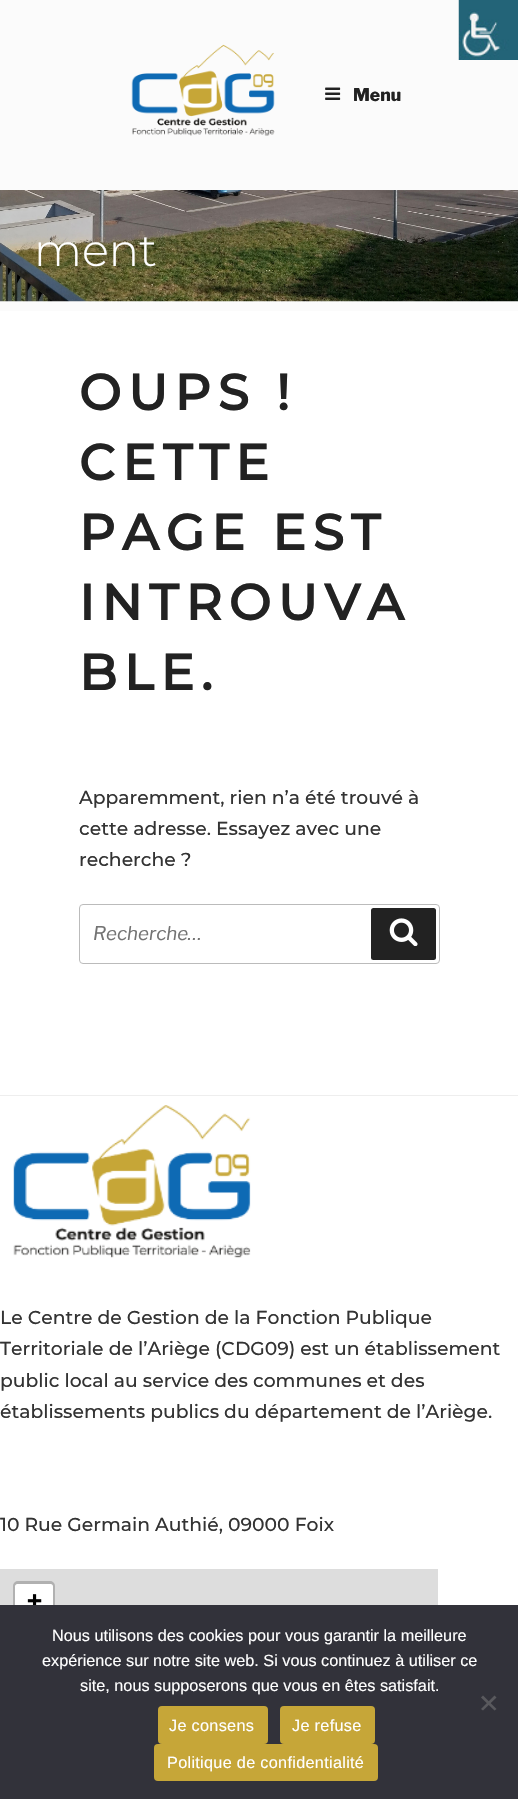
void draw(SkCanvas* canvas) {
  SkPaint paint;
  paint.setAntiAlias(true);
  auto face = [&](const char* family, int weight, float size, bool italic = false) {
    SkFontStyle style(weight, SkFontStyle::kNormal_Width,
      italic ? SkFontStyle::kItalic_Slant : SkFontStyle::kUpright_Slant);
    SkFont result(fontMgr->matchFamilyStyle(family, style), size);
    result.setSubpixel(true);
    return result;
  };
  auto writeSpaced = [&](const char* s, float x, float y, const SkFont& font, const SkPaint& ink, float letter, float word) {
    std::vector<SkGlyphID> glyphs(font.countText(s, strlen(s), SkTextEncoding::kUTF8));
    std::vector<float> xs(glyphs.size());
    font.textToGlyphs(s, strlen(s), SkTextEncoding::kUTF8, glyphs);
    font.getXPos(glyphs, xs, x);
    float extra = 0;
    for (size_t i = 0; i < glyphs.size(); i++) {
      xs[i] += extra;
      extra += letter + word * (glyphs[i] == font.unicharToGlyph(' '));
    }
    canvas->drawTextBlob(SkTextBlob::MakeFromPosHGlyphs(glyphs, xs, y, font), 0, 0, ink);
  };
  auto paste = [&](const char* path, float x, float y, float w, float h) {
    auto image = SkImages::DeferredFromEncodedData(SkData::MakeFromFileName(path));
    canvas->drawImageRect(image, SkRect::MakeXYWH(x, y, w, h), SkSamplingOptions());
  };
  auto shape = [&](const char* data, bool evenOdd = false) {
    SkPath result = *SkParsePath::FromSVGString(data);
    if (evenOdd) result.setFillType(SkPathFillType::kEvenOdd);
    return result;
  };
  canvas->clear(0xfffbfbfb);
  paste("img/1.png", 458, 0, 60, 60);
  paste("img/2.png", 131, 44, 144, 92);
  paste("img/3.png", 325, 87, 16, 13);
  paste("img/4.png", 0, 190, 518, 112);
  paint.setColor(0xffffffff);
  canvas->drawRect(SkRect::MakeXYWH(0, 311, 518, 1294), paint);
  paint.setStroke(true);
  paint.setStrokeWidth(1);
  paint.setColor(0xffbbbbbb);
  canvas->drawRoundRect(SkRect::MakeXYWH(79.5f, 904.5f, 360, 59), 3.5f, 3.5f, paint);
  paint.setStroke(false);
  paint.setColor(0xff222222);
  canvas->drawRoundRect(SkRect::MakeXYWH(371, 908, 65, 52), 2.5f, 2.5f, paint);
  paste("img/5.png", 389, 918, 29, 28);
  paint.setColor(0xffeeeeee);
  canvas->drawRect(SkRect::MakeXYWH(0, 1095, 518, 1), paint);
  paste("img/6.png", 13, 1105, 238, 153);
  paint.setColor(0xffdddddd);
  canvas->drawRect(SkRect::MakeXYWH(0, 1569, 438, 36), paint);
  paint.setStroke(true);
  paint.setStrokeWidth(3);
  paint.setColor(0xffb1b1b1);
  canvas->drawRoundRect(SkRect::MakeXYWH(14.5f, 1582.5f, 39, 77), 3.5f, 3.5f, paint);
  paint.setStroke(false);
  paint.setColor(0xffffffff);
  canvas->drawPath(shape("M17.5 1584H50.5C52 1584 53 1585 53 1586.5V1621H15V1586.5C15 1585 16 1584 17.5 1584Z"), paint);
  auto f0 = face("Libre Franklin", 100, 17.5f);
  paint.setColor(0xff222222);
  canvas->drawString("Menu", 353, 101, f0, paint);
  auto f1 = face("Montserrat", 100, 45);
  paint.setColor(0xffffffff);
  canvas->drawString("ment", 34, 266, f1, paint);
  auto f2 = face("Montserrat", 700, 50);
  paint.setColor(0xff222222);
  {
    const struct { const char* s; float x, y; } items[] = {
      {"OUPS !", 79, 410},
      {"CETTE", 79, 480},
      {"PAGE EST", 79, 550},
      {"INTROUVA", 79, 620},
      {"BLE.", 79, 690},
    };
    for (auto [s, x, y] : items) {
      writeSpaced(s, x, y, f2, paint, 7, 0);
    }
  }
  auto f3 = face("Montserrat", 500, 18.75f);
  paint.setColor(0xff333333);
  {
    const struct { const char* s; float x, y; } items[] = {
      {"Apparemment, rien n’a été trouvé à", 79, 804},
      {"cette adresse. Essayez avec une", 79, 835},
      {"recherche ?", 79, 866},
    };
    for (auto [s, x, y] : items) {
      canvas->drawString(s, x, y, f3, paint);
    }
  }
  auto f4 = face("Libre Franklin", 100, 18.75f, true);
  paint.setColor(0xff737373);
  canvas->drawString("Recherche…", 93, 940, f4, paint);
  paint.setColor(0xff333333);
  {
    const struct { const char* s; float x, y; } items[] = {
      {"Le Centre de Gestion de la Fonction Publique", 0, 1324},
      {"Territoriale de l’Ariège (CDG09) est un établissement", 0, 1355},
      {"public local au service des communes et des", 0, 1387},
      {"établissements publics du département de l’Ariège.", 0, 1418},
      {"10 Rue Germain Authié, 09000 Foix", 0, 1531},
    };
    for (auto [s, x, y] : items) {
      canvas->drawString(s, x, y, f3, paint);
    }
  }
  auto f5 = face("Montserrat", 700, 28);
  paint.setColor(0xff000000);
  canvas->drawString("+", 26, 1611, f5, paint);
  paint.setColor(0xff32323a);
  canvas->drawRect(SkRect::MakeXYWH(0, 1605, 518, 194), paint);
  auto f6 = face("Liberation Sans", 400, 16.25f);
  paint.setColor(0xffffffff);
  {
    const struct { const char* s; float x, y; } items[] = {
      {"Nous utilisons des cookies pour vous garantir la meilleure", 52, 1641},
      {"expérience sur notre site web. Si vous continuez à utiliser ce", 42, 1666},
      {"site, nous supposerons que vous en êtes satisfait.", 80, 1691},
    };
    for (auto [s, x, y] : items) {
      canvas->drawString(s, x, y, f6, paint);
    }
  }
  paint.setColor(0xff59595d);
  canvas->drawPath(shape("M494.5 1695.5L496.5 1697.5L483 1710.5L481 1709Z"), paint);
  canvas->drawPath(shape("M481 1697.5L483 1695.5L496.5 1709L494.5 1710.5Z"), paint);
  paint.setColor(0xffc6a638);
  canvas->drawRoundRect(SkRect::MakeXYWH(158, 1706, 110, 38), 4, 4, paint);
  paint.setColor(0xffffffff);
  writeSpaced("Je consens", 169, 1731, f6, paint, 0.3f, 0);
  paint.setColor(0xffc6a638);
  canvas->drawRoundRect(SkRect::MakeXYWH(280, 1706, 95, 38), 4, 4, paint);
  paint.setColor(0xffffffff);
  writeSpaced("Je refuse", 292, 1731, f6, paint, 0.3f, 0);
  paint.setColor(0xffc6a638);
  canvas->drawRoundRect(SkRect::MakeXYWH(154, 1744, 224, 37), 4, 4, paint);
  paint.setColor(0xffffffff);
  writeSpaced("Politique de confidentialité", 167, 1768, f6, paint, 0.3f, 0);
}
